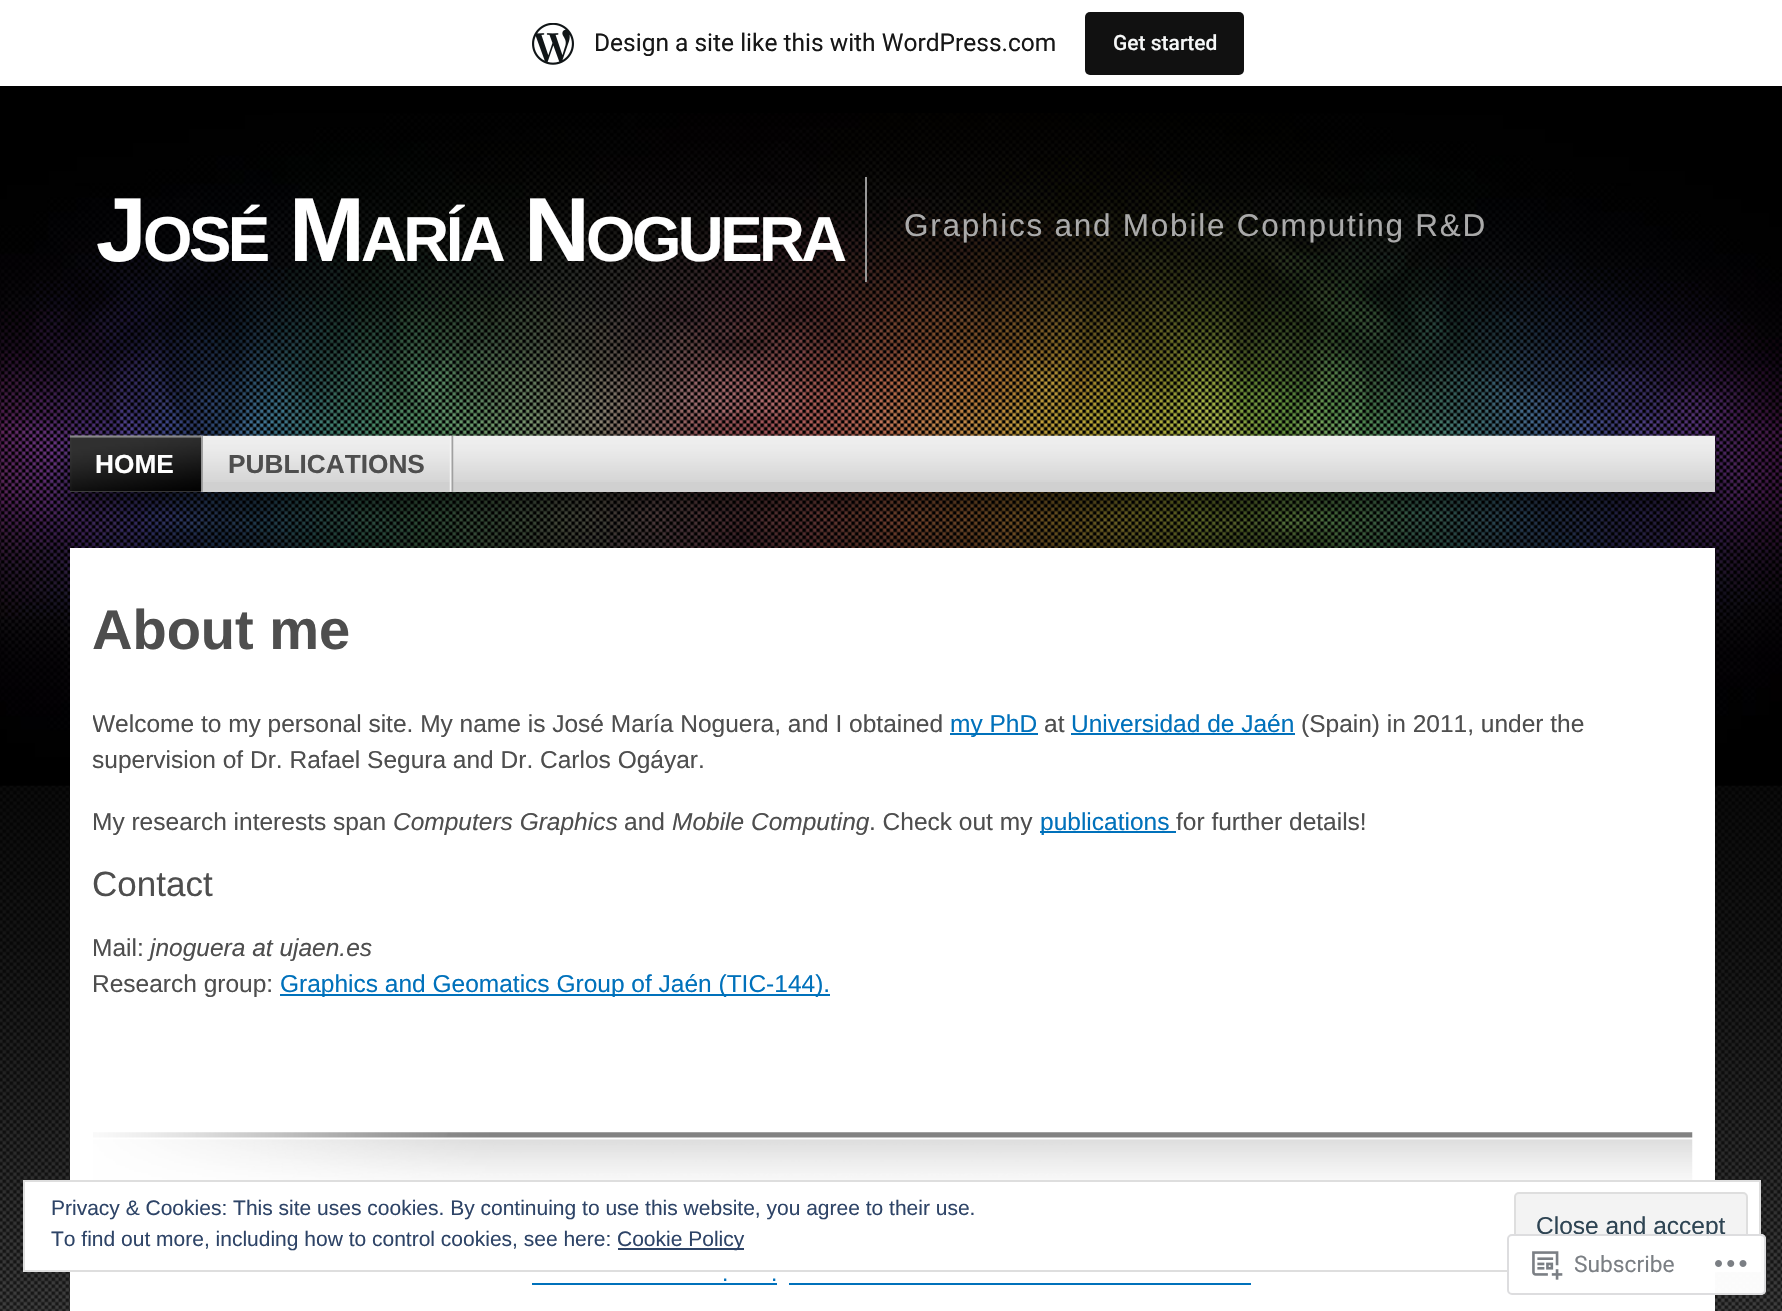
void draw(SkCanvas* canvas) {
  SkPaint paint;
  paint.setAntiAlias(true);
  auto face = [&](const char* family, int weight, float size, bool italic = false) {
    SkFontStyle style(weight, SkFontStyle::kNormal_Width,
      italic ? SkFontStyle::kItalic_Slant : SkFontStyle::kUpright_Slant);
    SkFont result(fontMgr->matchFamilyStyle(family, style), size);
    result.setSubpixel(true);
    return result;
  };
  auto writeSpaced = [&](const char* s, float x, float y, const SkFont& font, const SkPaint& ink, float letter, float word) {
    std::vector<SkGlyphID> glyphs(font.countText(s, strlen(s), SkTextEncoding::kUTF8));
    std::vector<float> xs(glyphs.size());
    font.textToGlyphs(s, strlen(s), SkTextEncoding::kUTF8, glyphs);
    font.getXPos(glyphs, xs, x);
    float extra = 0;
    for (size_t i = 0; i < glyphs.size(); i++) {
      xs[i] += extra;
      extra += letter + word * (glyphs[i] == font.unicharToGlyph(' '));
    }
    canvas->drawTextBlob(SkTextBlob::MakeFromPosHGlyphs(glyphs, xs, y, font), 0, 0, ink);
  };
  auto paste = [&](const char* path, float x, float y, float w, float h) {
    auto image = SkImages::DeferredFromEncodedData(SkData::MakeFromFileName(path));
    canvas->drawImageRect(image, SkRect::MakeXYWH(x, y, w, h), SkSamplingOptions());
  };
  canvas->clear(0xff000000);
  paste("img/1.png", 0, 785, 1782, 526);
  paint.setColor(0xffffffff);
  canvas->drawRect(SkRect::MakeXYWH(0, 0, 1782, 86), paint);
  paste("img/2.png", 532, 23, 42, 42);
  paint.setColor(0xff111111);
  canvas->drawRoundRect(SkRect::MakeXYWH(1085, 12, 159, 63), 5, 5, paint);
  paste("img/3.png", 0, 113, 1782, 673);
  paint.setColor(0xff999999);
  canvas->drawRect(SkRect::MakeXYWH(865, 177, 2, 105), paint);
  paint.setColor(0x99000000);
  paint.setMaskFilter(SkMaskFilter::MakeBlur(kNormal_SkBlurStyle, 12));
  canvas->drawRect(SkRect::MakeXYWH(70, 450, 1645, 56), paint);
  paint.setMaskFilter(nullptr);
  paint.setColor(0xffd0d0d0);
  canvas->drawRect(SkRect::MakeXYWH(70, 482, 1645, 10), paint);
  paste("img/4.png", 70, 435, 1645, 47);
  paste("img/5.png", 199, 435, 4, 57);
  paste("img/6.png", 70, 435, 132, 57);
  paste("img/7.png", 449, 435, 5, 57);
  {
    const struct { float x, y, w, h; SkColor color; } items[] = {
      {70, 548, 1645, 632, 0xffffffff},
      {950, 733, 88, 2, 0xff0071bb},
      {1071, 733, 224, 2, 0xff0071bb},
      {1040, 831, 136, 2, 0xff0071bb},
      {280, 994, 550, 2, 0xff0071bb},
    };
    for (auto [x, y, w, h, color] : items) {
      paint.setColor(color);
      canvas->drawRect(SkRect::MakeXYWH(x, y, w, h), paint);
    }
  }
  paste("img/8.png", 93, 1132, 1600, 48);
  {
    const struct { float x, y, w, h; SkColor color; } items[] = {
      {70, 1272, 1645, 39, 0xffffffff},
      {532, 1283, 245, 2, 0xff0071bb},
      {789, 1283, 462, 2, 0xff0071bb},
    };
    for (auto [x, y, w, h, color] : items) {
      paint.setColor(color);
      canvas->drawRect(SkRect::MakeXYWH(x, y, w, h), paint);
    }
  }
  paint.setColor(0xffffffff);
  canvas->drawRect(SkRect::MakeXYWH(24, 1181, 1736, 90), paint);
  paint.setStroke(true);
  paint.setStrokeWidth(2);
  paint.setColor(0xffdedede);
  canvas->drawRect(SkRect::MakeXYWH(24, 1181, 1736, 90), paint);
  paint.setStroke(false);
  paint.setColor(0xff2e4467);
  canvas->drawRect(SkRect::MakeXYWH(618, 1248, 126, 2), paint);
  paint.setColor(0xfff3f3f3);
  canvas->drawRoundRect(SkRect::MakeXYWH(1515, 1193, 232, 66), 4, 4, paint);
  paint.setStroke(true);
  paint.setColor(0xffdedede);
  canvas->drawRoundRect(SkRect::MakeXYWH(1515, 1193, 232, 66), 4, 4, paint);
  auto f0 = face("Roboto", 400, 24.5f);
  paint.setStroke(false);
  paint.setColor(0xff171717);
  canvas->drawString("Design a site like this with WordPress.com", 594, 51, f0, paint);
  auto f1 = face("Roboto", 500, 21);
  paint.setColor(0xfff6f7f7);
  canvas->drawString("Get started", 1113, 50, f1, paint);
  auto f2 = face("Liberation Sans", 700, 91);
  paint.setColor(0xffffffff);
  writeSpaced("J", 96, 261, f2, paint, -3.5f, 0);
  auto f3 = face("Liberation Sans", 700, 63.5f);
  writeSpaced("OSÉ", 143, 261, f3, paint, -3.5f, 0);
  writeSpaced("M", 289, 261, f2, paint, -3.5f, 0);
  writeSpaced("ARÍA", 361, 261, f3, paint, -3.5f, 0);
  writeSpaced("N", 524, 261, f2, paint, -3.5f, 0);
  writeSpaced("OGUERA", 586, 261, f3, paint, -3.5f, 0);
  auto f4 = face("Liberation Sans", 400, 31.5f);
  paint.setColor(0xffaaaaaa);
  writeSpaced("Graphics and Mobile Computing R&D", 904, 236, f4, paint, 1.75f, 0);
  auto f5 = face("Liberation Sans", 700, 26.25f);
  paint.setColor(0xffffffff);
  canvas->drawString("HOME", 95, 473, f5, paint);
  paint.setColor(0xff4e4e4e);
  canvas->drawString("PUBLICATIONS", 228, 473, f5, paint);
  auto f6 = face("Liberation Sans", 700, 56);
  canvas->drawString("About me", 92, 649, f6, paint);
  canvas->save();
  canvas->clipRect(SkRect::MakeXYWH(93, 681, 1599, 346));
  auto f7 = face("Liberation Sans", 400, 24.5f);
  canvas->drawString("Welcome to my personal site. My name is José María Noguera, and I obtained", 92, 732, f7, paint);
  canvas->restore();
  paint.setColor(0xff0071bb);
  canvas->drawString("my PhD", 950, 732, f7, paint);
  paint.setColor(0xff4e4e4e);
  canvas->drawString("at", 1044, 732, f7, paint);
  paint.setColor(0xff0071bb);
  canvas->drawString("Universidad de Jaén", 1071, 732, f7, paint);
  paint.setColor(0xff4e4e4e);
  {
    const struct { const char* s; float x, y; } items[] = {
      {"(Spain) in 2011, under the", 1301, 732},
      {"supervision of Dr. Rafael Segura and Dr. Carlos Ogáyar.", 92, 768},
      {"My research interests span", 92, 830},
    };
    for (auto [s, x, y] : items) {
      canvas->drawString(s, x, y, f7, paint);
    }
  }
  auto f8 = face("Liberation Sans", 400, 24.5f, true);
  canvas->drawString("Computers Graphics", 393, 830, f8, paint);
  canvas->drawString("and", 624, 830, f7, paint);
  canvas->drawString("Mobile Computing", 672, 830, f8, paint);
  canvas->drawString(". Check out my", 869, 830, f7, paint);
  paint.setColor(0xff0071bb);
  canvas->drawString("publications", 1040, 830, f7, paint);
  paint.setColor(0xff4e4e4e);
  canvas->drawString("for further details!", 1176, 830, f7, paint);
  auto f9 = face("Liberation Sans", 400, 35);
  canvas->drawString("Contact", 92, 896, f9, paint);
  canvas->drawString("Mail:", 92, 956, f7, paint);
  canvas->drawString("jnoguera at ujaen.es", 150, 956, f8, paint);
  canvas->drawString("Research group:", 92, 992, f7, paint);
  paint.setColor(0xff0071bb);
  canvas->drawString("Graphics and Geomatics Group of Jaén (TIC-144).", 280, 992, f7, paint);
  auto f10 = face("Liberation Sans", 400, 22.75f);
  canvas->drawString(".", 722, 1281, f10, paint);
  canvas->drawString(".", 771, 1281, f10, paint);
  auto f11 = face("Liberation Sans", 400, 21);
  paint.setColor(0xff2e4467);
  {
    const struct { const char* s; float x, y; } items[] = {
      {"Privacy & Cookies: This site uses cookies. By continuing to use this website, you agree to their use.", 51, 1215},
      {"To find out more, including how to control cookies, see here:", 51, 1246},
      {"Cookie Policy", 617, 1246},
    };
    for (auto [s, x, y] : items) {
      canvas->drawString(s, x, y, f11, paint);
    }
  }
  paint.setColor(0xff2e4453);
  canvas->drawString("Close and accept", 1536, 1234, f7, paint);
  paint.setColor(0xfaffffff);
  canvas->drawRoundRect(SkRect::MakeXYWH(1507, 1234, 259, 61), 5, 5, paint);
  paint.setStroke(true);
  paint.setColor(0xfadcdcde);
  canvas->drawRoundRect(SkRect::MakeXYWH(1508, 1235, 257, 59), 4, 4, paint);
  paste("img/9.png", 1532, 1251, 31, 29);
  auto f12 = face("Roboto", 400, 22.75f);
  paint.setStroke(false);
  paint.setColor(0xff7b7f84);
  canvas->drawString("Subscribe", 1574, 1272, f12, paint);
  paste("img/10.png", 1715, 1260, 32, 7);
}
